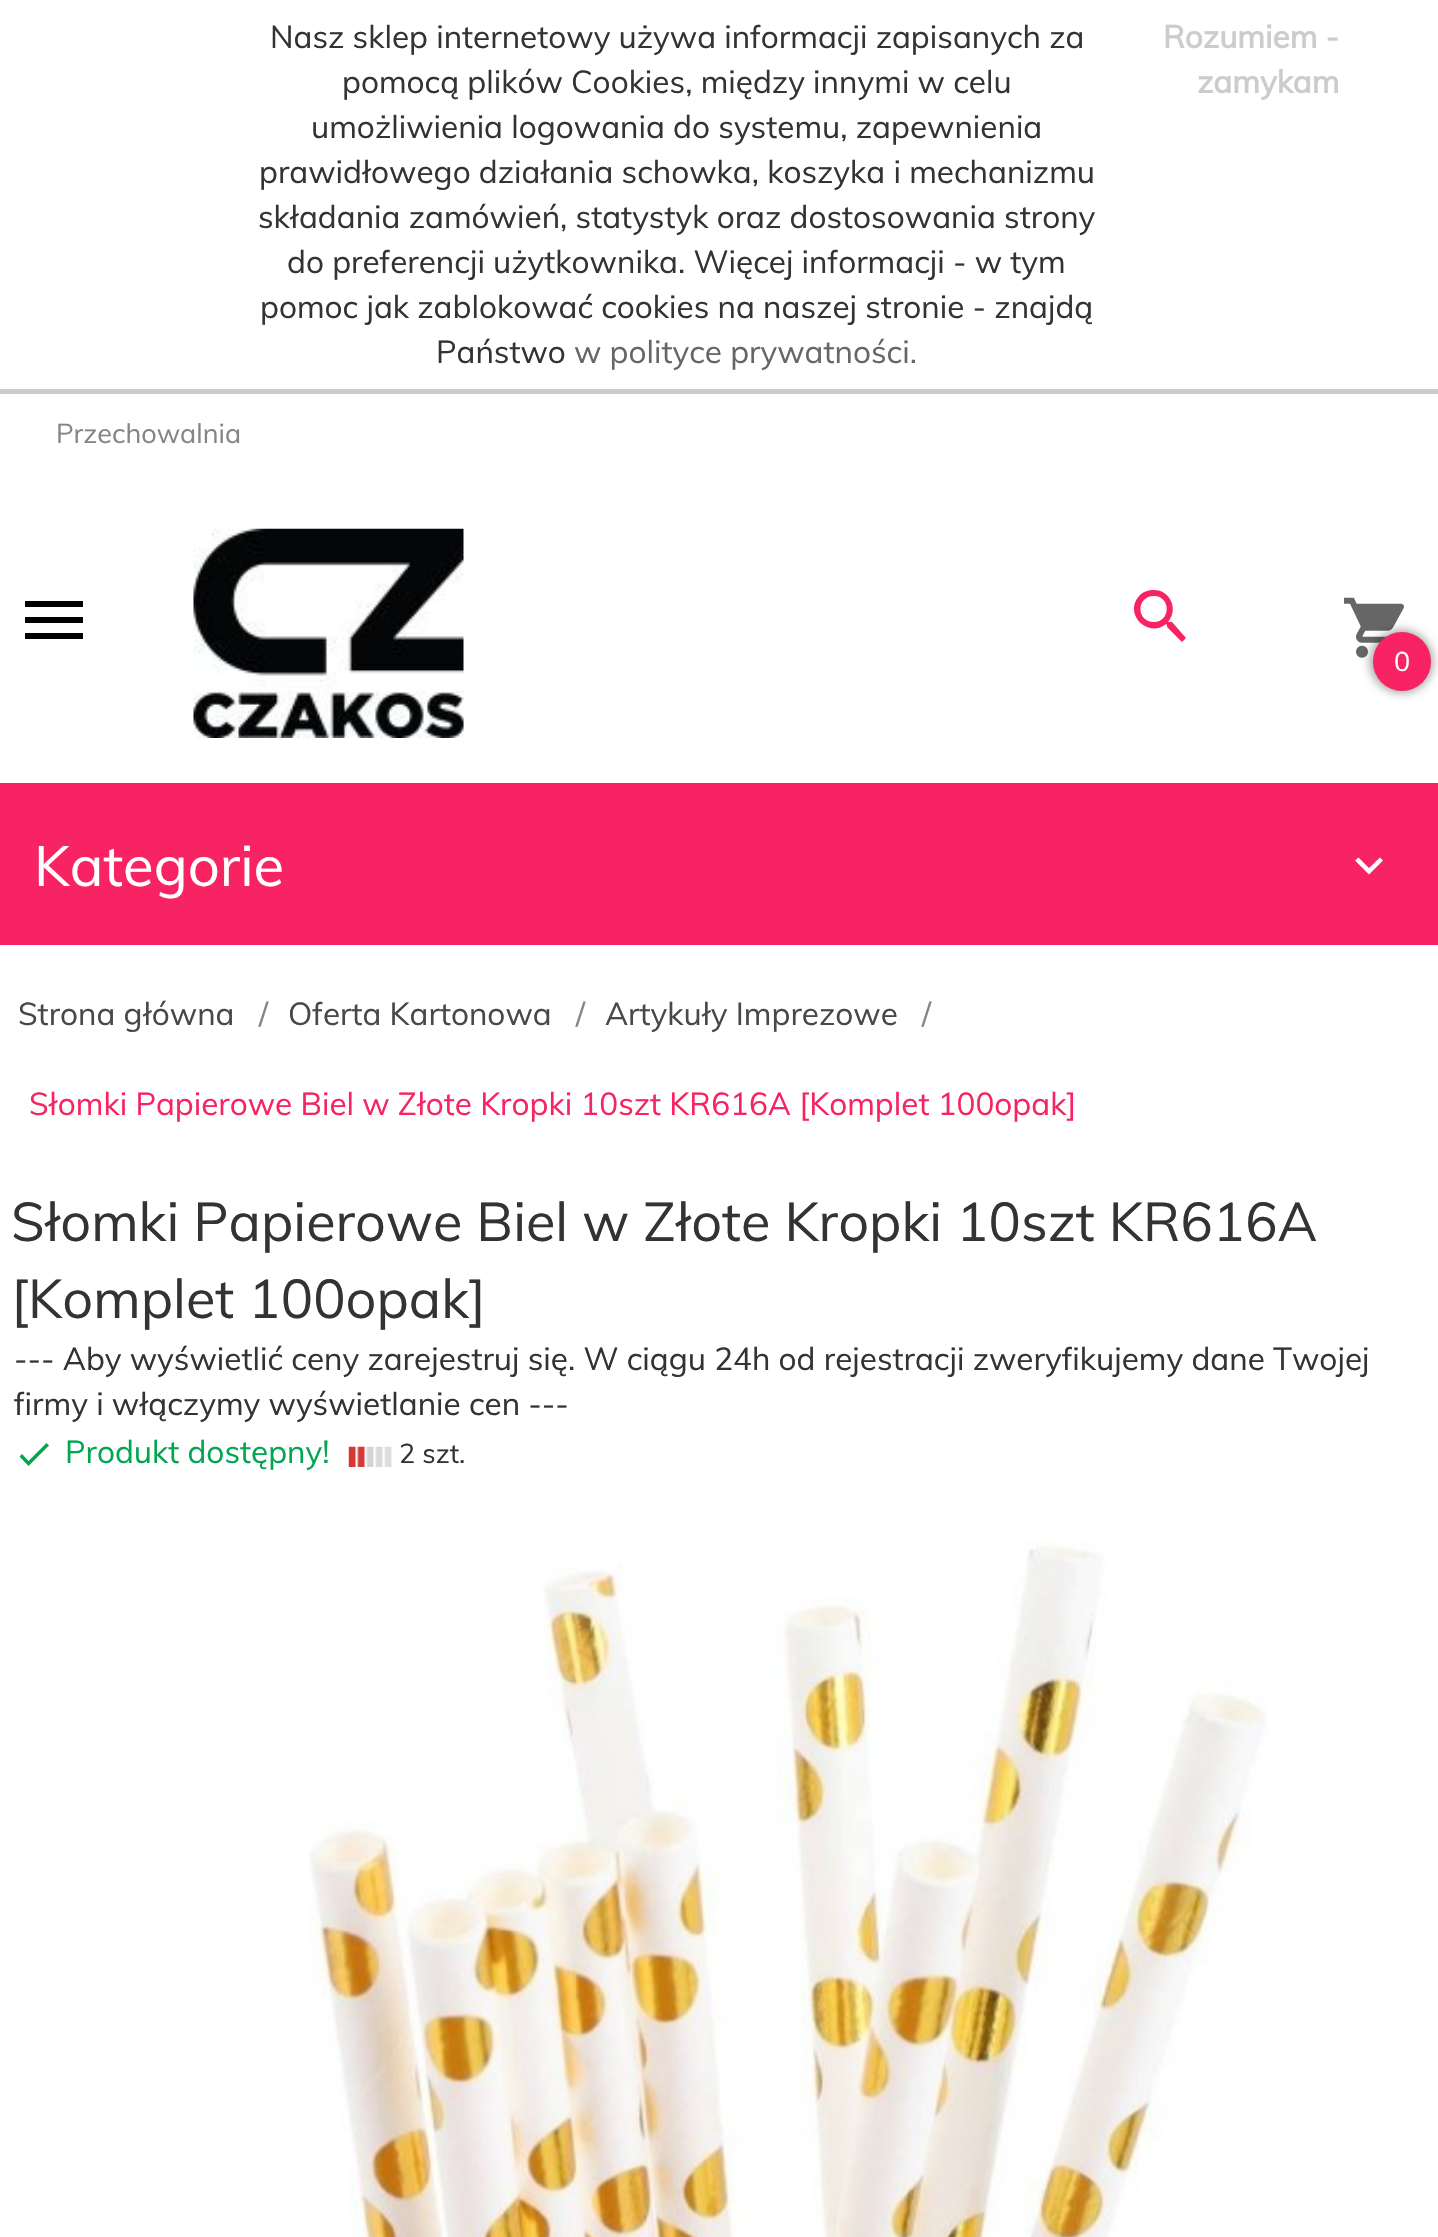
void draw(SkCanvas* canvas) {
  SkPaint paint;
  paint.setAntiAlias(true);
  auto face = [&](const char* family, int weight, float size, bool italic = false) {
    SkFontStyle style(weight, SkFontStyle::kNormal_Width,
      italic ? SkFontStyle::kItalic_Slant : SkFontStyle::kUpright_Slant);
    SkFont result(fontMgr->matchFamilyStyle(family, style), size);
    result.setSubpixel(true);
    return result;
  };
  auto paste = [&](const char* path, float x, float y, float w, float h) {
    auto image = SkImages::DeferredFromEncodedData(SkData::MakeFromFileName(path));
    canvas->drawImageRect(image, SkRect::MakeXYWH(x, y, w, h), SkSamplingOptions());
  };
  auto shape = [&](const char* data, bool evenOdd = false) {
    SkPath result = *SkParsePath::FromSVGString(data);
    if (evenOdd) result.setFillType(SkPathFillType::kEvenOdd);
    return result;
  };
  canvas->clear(0xffffffff);
  paint.setColor(0xffcccccc);
  canvas->drawRect(SkRect::MakeXYWH(0, 389, 1438, 5), paint);
  paint.setColor(0xff000000);
  canvas->drawPath(shape("M25 601H83V607H25ZM25 617H83V623H25ZM25 633H83V639H25Z"), paint);
  paste("img/1.png", 193, 528, 271, 210);
  paint.setColor(0xfff72363);
  canvas->drawPath(shape("M1154 590C1170 590 1179 609 1168 622H1169H1172L1186 638L1182 642L1167 627V625L1166 624C1148 639 1122 613 1140 595C1143 592 1148 590 1154 590ZM1154 596C1136 596 1136 622 1154 622C1171 622 1171 596 1154 596Z"), paint);
  paste("img/2.png", 1344, 597, 60, 61);
  paint.setColor(0x5c000000);
  paint.setMaskFilter(SkMaskFilter::MakeBlur(kNormal_SkBlurStyle, 5));
  canvas->drawRoundRect(SkRect::MakeXYWH(1370, 630, 63, 63), 31.5f, 31.5f, paint);
  paint.setMaskFilter(nullptr);
  paint.setColor(0xfff72363);
  canvas->drawRoundRect(SkRect::MakeXYWH(1373, 632, 58, 59), 29, 29, paint);
  canvas->drawRect(SkRect::MakeXYWH(0, 783, 1438, 162), paint);
  paint.setColor(0xffffffff);
  canvas->drawPath(shape("M1358.5 857.5L1369 868L1380 857.5L1383 860.5L1369 874.5L1355 860.5Z"), paint);
  paint.setColor(0xff00a650);
  canvas->drawPath(shape("M49 1445.5L28.5 1466L19.5 1456.5L22 1454L28.5 1461L46.5 1443Z"), paint);
  paste("img/3.png", 348, 1446, 44, 21);
  paste("img/4.png", 309, 1541, 959, 696);
  auto f0 = face("Muli", 400, 31.5f);
  paint.setColor(0xff333333);
  {
    const struct { const char* s; float x, y; } items[] = {
      {"Nasz sklep internetowy używa informacji zapisanych za", 270, 48},
      {"pomocą plików Cookies, między innymi w celu", 342, 93},
      {"umożliwienia logowania do systemu, zapewnienia", 311, 138},
      {"prawidłowego działania schowka, koszyka i mechanizmu", 259, 183},
      {"składania zamówień, statystyk oraz dostosowania strony", 258, 228},
      {"do preferencji użytkownika. Więcej informacji - w tym", 287, 273},
      {"pomoc jak zablokować cookies na naszej stronie - znajdą", 260, 318},
      {"Państwo", 436, 363},
    };
    for (auto [s, x, y] : items) {
      canvas->drawString(s, x, y, f0, paint);
    }
  }
  paint.setColor(0xff666666);
  canvas->drawString("w polityce prywatności.", 574, 363, f0, paint);
  auto f1 = face("Muli", 700, 31.5f);
  paint.setColor(0xffcccccc);
  canvas->drawString("Rozumiem -", 1163, 48, f1, paint);
  canvas->drawString("zamykam", 1197, 93, f1, paint);
  auto f2 = face("Muli", 400, 27);
  paint.setColor(0xff858585);
  canvas->drawString("Przechowalnia", 56, 443, f2, paint);
  paint.setColor(0xffffffff);
  canvas->drawString("0", 1394, 671, f2, paint);
  auto f3 = face("Muli", 400, 56.25f);
  canvas->drawString("Kategorie", 34, 886, f3, paint);
  paint.setColor(0xff484848);
  canvas->drawString("Strona główna", 18, 1025, f0, paint);
  paint.setColor(0xff858585);
  canvas->drawString("/", 259, 1025, f0, paint);
  paint.setColor(0xff484848);
  canvas->drawString("Oferta Kartonowa", 288, 1025, f0, paint);
  paint.setColor(0xff858585);
  canvas->drawString("/", 576, 1025, f0, paint);
  paint.setColor(0xff484848);
  canvas->drawString("Artykuły Imprezowe", 605, 1025, f0, paint);
  paint.setColor(0xff858585);
  canvas->drawString("/", 922, 1025, f0, paint);
  paint.setColor(0xfff72363);
  canvas->drawString("Słomki Papierowe Biel w Złote Kropki 10szt KR616A [Komplet 100opak]", 29, 1115, f0, paint);
  auto f4 = face("Muli", 400, 54);
  paint.setColor(0xff333333);
  canvas->drawString("Słomki Papierowe Biel w Złote Kropki 10szt KR616A", 11, 1241, f4, paint);
  canvas->drawString("[Komplet 100opak]", 11, 1318, f4, paint);
  canvas->drawString("--- Aby wyświetlić ceny zarejestruj się. W ciągu 24h od rejestracji zweryfikujemy dane Twojej", 14, 1370, f0, paint);
  canvas->drawString("firmy i włączymy wyświetlanie cen ---", 14, 1415, f0, paint);
  paint.setColor(0xff00a650);
  canvas->drawString("Produkt dostępny!", 65, 1463, f0, paint);
  paint.setColor(0xff333333);
  canvas->drawString("2 szt.", 399, 1463, f2, paint);
}
